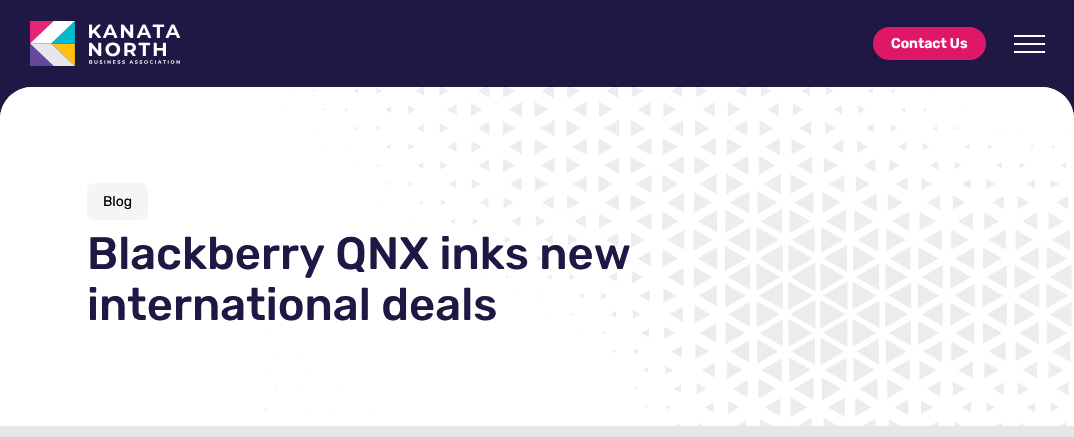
void draw(SkCanvas* canvas) {
  SkPaint paint;
  paint.setAntiAlias(true);
  auto face = [&](const char* family, int weight, float size, bool italic = false) {
    SkFontStyle style(weight, SkFontStyle::kNormal_Width,
      italic ? SkFontStyle::kItalic_Slant : SkFontStyle::kUpright_Slant);
    SkFont result(fontMgr->matchFamilyStyle(family, style), size);
    result.setSubpixel(true);
    return result;
  };
  auto paste = [&](const char* path, float x, float y, float w, float h) {
    auto image = SkImages::DeferredFromEncodedData(SkData::MakeFromFileName(path));
    canvas->drawImageRect(image, SkRect::MakeXYWH(x, y, w, h), SkSamplingOptions());
  };
  auto shape = [&](const char* data, bool evenOdd = false) {
    SkPath result = *SkParsePath::FromSVGString(data);
    if (evenOdd) result.setFillType(SkPathFillType::kEvenOdd);
    return result;
  };
  canvas->clear(0xff1f1744);
  paste("img/1.png", 30, 21, 150, 45);
  paint.setColor(0xffde1767);
  canvas->drawRoundRect(SkRect::MakeXYWH(874, 28, 111, 31), 15.5f, 15.5f, paint);
  paint.setStroke(true);
  paint.setStrokeWidth(2);
  canvas->drawRoundRect(SkRect::MakeXYWH(874, 28, 111, 31), 15.5f, 15.5f, paint);
  paint.setStroke(false);
  {
    const struct { float x, y, w, h; SkColor color; } items[] = {
      {1014, 35, 31, 2, 0xffffffff},
      {1014, 43, 31, 2, 0xffffffff},
      {1014, 51, 31, 2, 0xffffffff},
    };
    for (auto [x, y, w, h, color] : items) {
      paint.setColor(color);
      canvas->drawRect(SkRect::MakeXYWH(x, y, w, h), paint);
    }
  }
  canvas->drawPath(shape("M32 87H1042C1059.5 87 1074 101.5 1074 119V426H0V119C0 101.5 14.5 87 32 87Z"), paint);
  paste("img/2.png", 0, 87, 1074, 339);
  paint.setColor(0xfff3f5f7);
  canvas->drawRoundRect(SkRect::MakeXYWH(87, 183, 61, 37), 8, 8, paint);
  paint.setColor(0xffe6e7e8);
  canvas->drawRect(SkRect::MakeXYWH(0, 426, 1074, 11), paint);
  auto f0 = face("Rubik", 600, 14);
  paint.setColor(0xffffffff);
  canvas->drawString("Contact Us", 891, 48, f0, paint);
  auto f1 = face("Rubik", 400, 14);
  paint.setColor(0xff000000);
  canvas->drawString("Blog", 103, 206, f1, paint);
  auto f2 = face("Rubik", 300, 45.4f);
  paint.setColor(0xff1f1744);
  canvas->drawString("Blackberry QNX inks new", 87, 269, f2, paint);
  canvas->drawString("international deals", 87, 320, f2, paint);
}
